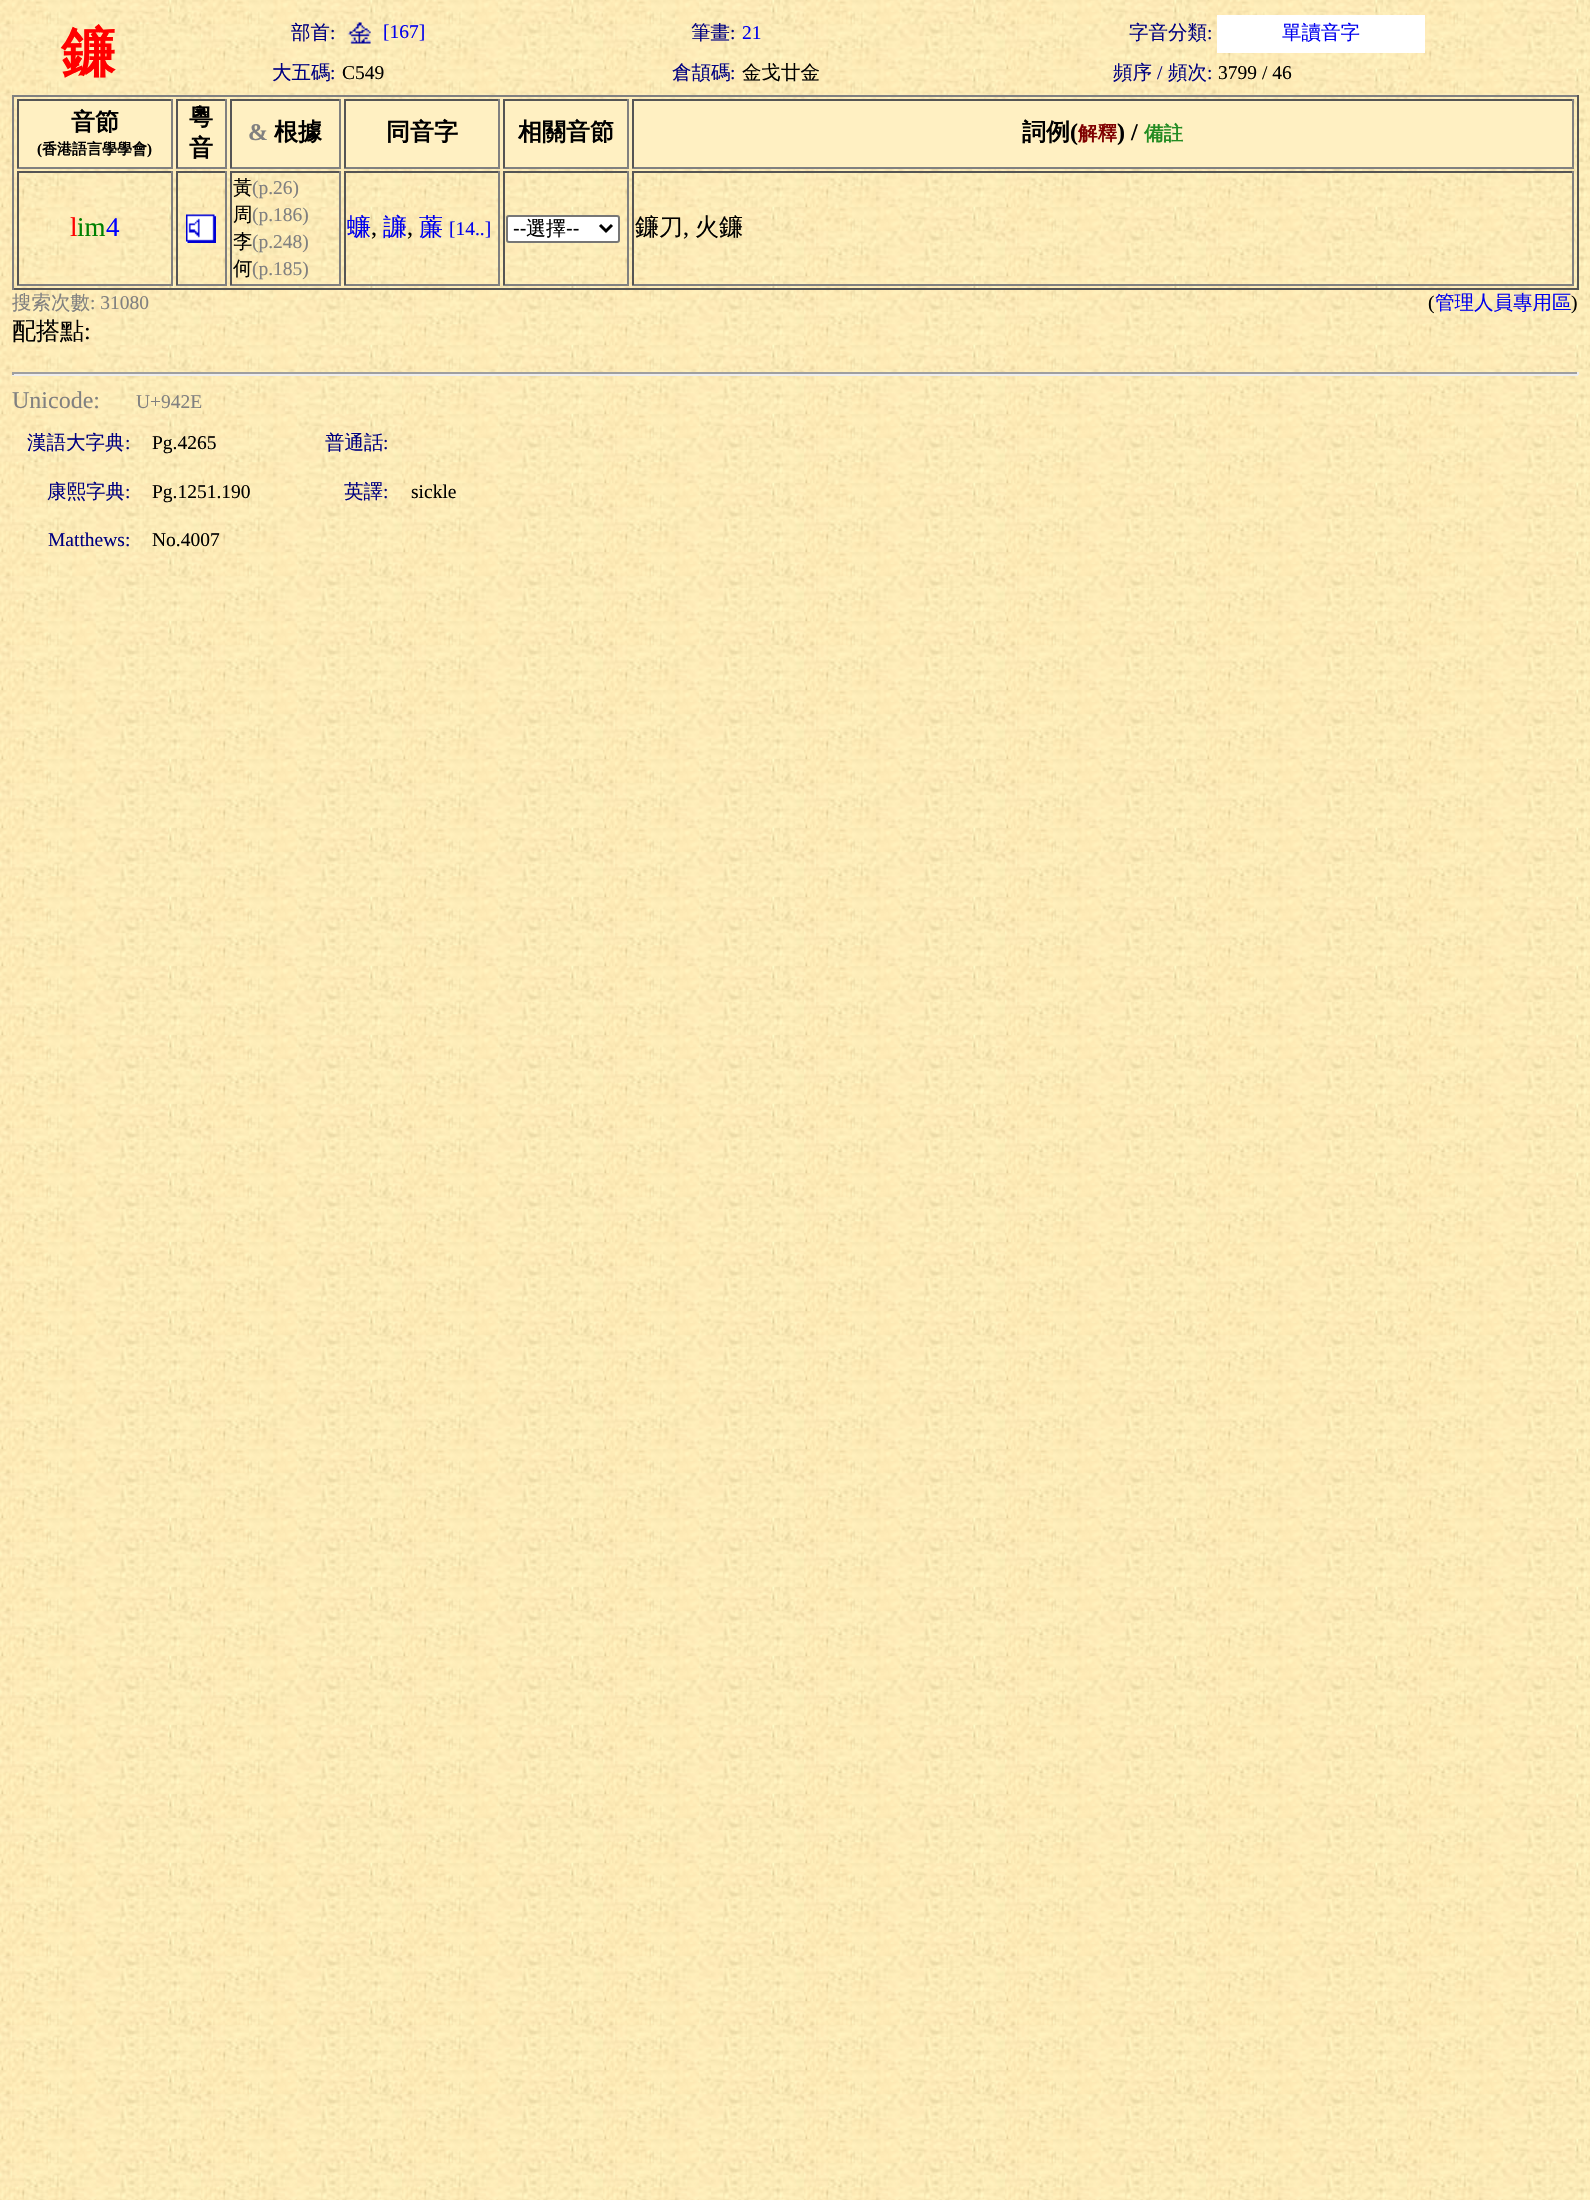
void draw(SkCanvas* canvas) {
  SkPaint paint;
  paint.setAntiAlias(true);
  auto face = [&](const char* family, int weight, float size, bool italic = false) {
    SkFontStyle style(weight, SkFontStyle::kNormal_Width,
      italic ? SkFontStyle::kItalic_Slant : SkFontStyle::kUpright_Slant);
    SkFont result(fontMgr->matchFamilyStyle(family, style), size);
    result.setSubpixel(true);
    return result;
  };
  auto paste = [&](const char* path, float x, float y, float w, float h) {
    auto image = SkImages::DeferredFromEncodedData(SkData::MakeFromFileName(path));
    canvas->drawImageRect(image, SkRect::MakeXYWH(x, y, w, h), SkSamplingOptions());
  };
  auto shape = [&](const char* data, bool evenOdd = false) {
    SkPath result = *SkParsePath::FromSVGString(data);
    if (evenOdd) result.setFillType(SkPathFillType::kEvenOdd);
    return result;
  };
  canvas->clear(0xffffffff);
  paste("img/1.png", 0, 0, 1590, 2200);
  paste("img/2.png", 347, 22, 24, 22);
  {
    const struct { float x, y, w, h; SkColor color; } items[] = {
      {1217, 15, 208, 38, 0xffffffff},
      {12, 95, 1566, 2, 0xff808080},
      {1577, 95, 2, 195, 0xff555555},
      {12, 288, 1566, 2, 0xff555555},
      {12, 95, 2, 195, 0xff808080},
      {19, 99, 1553, 69, 0xfffff0c2},
      {17, 99, 156, 2, 0xff555555},
      {171, 99, 2, 69, 0xff808080},
      {17, 167, 156, 2, 0xff808080},
      {17, 99, 2, 69, 0xff555555},
      {176, 99, 51, 2, 0xff555555},
      {225, 99, 2, 69, 0xff808080},
      {176, 167, 51, 2, 0xff808080},
      {176, 99, 2, 69, 0xff555555},
      {230, 99, 111, 2, 0xff555555},
      {339, 99, 2, 69, 0xff808080},
      {230, 167, 111, 2, 0xff808080},
      {230, 99, 2, 69, 0xff555555},
      {344, 99, 156, 2, 0xff555555},
      {498, 99, 2, 69, 0xff808080},
      {344, 167, 156, 2, 0xff808080},
      {344, 99, 2, 69, 0xff555555},
      {503, 99, 126, 2, 0xff555555},
      {627, 99, 2, 69, 0xff808080},
      {503, 167, 126, 2, 0xff808080},
      {503, 99, 2, 69, 0xff555555},
      {632, 99, 942, 2, 0xff555555},
      {1572, 99, 2, 69, 0xff808080},
      {632, 167, 942, 2, 0xff808080},
      {632, 99, 2, 69, 0xff555555},
      {17, 171, 156, 2, 0xff555555},
      {171, 171, 2, 114, 0xff808080},
      {17, 284, 156, 2, 0xff808080},
      {17, 171, 2, 114, 0xff555555},
      {176, 171, 51, 2, 0xff555555},
      {225, 171, 2, 114, 0xff808080},
      {176, 284, 51, 2, 0xff808080},
      {176, 171, 2, 114, 0xff555555},
    };
    for (auto [x, y, w, h, color] : items) {
      paint.setColor(color);
      canvas->drawRect(SkRect::MakeXYWH(x, y, w, h), paint);
    }
  }
  paste("img/3.png", 186, 214, 30, 29);
  {
    const struct { float x, y, w, h; SkColor color; } items[] = {
      {230, 171, 111, 2, 0xff555555},
      {339, 171, 2, 114, 0xff808080},
      {230, 284, 111, 2, 0xff808080},
      {230, 171, 2, 114, 0xff555555},
      {344, 171, 156, 2, 0xff555555},
      {498, 171, 2, 114, 0xff808080},
      {344, 284, 156, 2, 0xff808080},
      {344, 171, 2, 114, 0xff555555},
      {503, 171, 126, 2, 0xff555555},
      {627, 171, 2, 114, 0xff808080},
      {503, 284, 126, 2, 0xff808080},
      {503, 171, 2, 114, 0xff555555},
    };
    for (auto [x, y, w, h, color] : items) {
      paint.setColor(color);
      canvas->drawRect(SkRect::MakeXYWH(x, y, w, h), paint);
    }
  }
  paint.setColor(0xffffffff);
  canvas->drawRoundRect(SkRect::MakeXYWH(507, 216, 112, 26), 2, 2, paint);
  paint.setStroke(true);
  paint.setStrokeWidth(2);
  paint.setColor(0xff767676);
  canvas->drawRoundRect(SkRect::MakeXYWH(507, 216, 112, 26), 2, 2, paint);
  paint.setStrokeWidth(3);
  paint.setColor(0xff000000);
  canvas->drawPath(shape("M600 225L606 231L612 225"), paint);
  paint.setStroke(false);
  {
    const struct { float x, y, w, h; SkColor color; } items[] = {
      {632, 171, 942, 2, 0xff555555},
      {1572, 171, 2, 114, 0xff808080},
      {632, 284, 942, 2, 0xff808080},
      {632, 171, 2, 114, 0xff555555},
      {12, 372, 1566, 2, 0xff9f9f9f},
      {1577, 372, 2, 3, 0xffeeeeee},
      {12, 374, 1566, 2, 0xffeeeeee},
      {12, 372, 2, 3, 0xff9f9f9f},
    };
    for (auto [x, y, w, h, color] : items) {
      paint.setColor(color);
      canvas->drawRect(SkRect::MakeXYWH(x, y, w, h), paint);
    }
  }
  auto f0 = face("WenQuanYi Zen Hei", 700, 54);
  paint.setColor(0xffff0000);
  canvas->drawString("鐮", 61, 71, f0, paint);
  auto f1 = face("WenQuanYi Zen Hei", 500, 19.5f);
  paint.setColor(0xff000080);
  canvas->drawString("部首", 291, 39, f1, paint);
  auto f2 = face("Liberation Serif", 400, 19.5f);
  canvas->drawString(":", 330, 39, f2, paint);
  paint.setColor(0xff0000ee);
  canvas->drawString("[167]", 383, 38, f2, paint);
  paint.setColor(0xff000080);
  canvas->drawString("筆畫", 691, 39, f1, paint);
  canvas->drawString(":", 730, 39, f2, paint);
  paint.setColor(0xff0000ee);
  canvas->drawString("21", 742, 39, f2, paint);
  paint.setColor(0xff000080);
  canvas->drawString("字音分類", 1129, 39, f1, paint);
  canvas->drawString(":", 1207, 39, f2, paint);
  paint.setColor(0xff0000ee);
  canvas->drawString("單讀音字", 1282, 39, f1, paint);
  paint.setColor(0xff000080);
  canvas->drawString("大五碼", 272, 79, f1, paint);
  canvas->drawString(":", 330, 79, f2, paint);
  paint.setColor(0xff000000);
  canvas->drawString("C549", 342, 79, f2, paint);
  paint.setColor(0xff000080);
  canvas->drawString("倉頡碼", 672, 79, f1, paint);
  canvas->drawString(":", 730, 79, f2, paint);
  paint.setColor(0xff000000);
  canvas->drawString("金戈廿金", 742, 79, f1, paint);
  paint.setColor(0xff000080);
  canvas->drawString("頻序", 1113, 79, f1, paint);
  canvas->drawString("/", 1157, 79, f2, paint);
  canvas->drawString("頻次", 1168, 79, f1, paint);
  canvas->drawString(":", 1207, 79, f2, paint);
  paint.setColor(0xff000000);
  canvas->drawString("3799 / 46", 1218, 79, f2, paint);
  auto f3 = face("WenQuanYi Zen Hei", 700, 24);
  canvas->drawString("音節", 71, 130, f3, paint);
  auto f4 = face("Liberation Serif", 700, 15);
  canvas->drawString("(", 37, 154, f4, paint);
  auto f5 = face("WenQuanYi Zen Hei", 700, 15);
  canvas->drawString("香港語言學學會", 42, 154, f5, paint);
  canvas->drawString(")", 147, 154, f4, paint);
  canvas->drawString("粵", 189, 125, f3, paint);
  canvas->drawString("音", 189, 156, f3, paint);
  auto f6 = face("Liberation Serif", 700, 24);
  paint.setColor(0xff808080);
  canvas->drawString("&", 248, 140, f6, paint);
  paint.setColor(0xff000000);
  {
    const struct { const char* s; float x, y; } items[] = {
      {"根據", 274, 140},
      {"同音字", 386, 140},
      {"相關音節", 518, 140},
      {"詞例", 1022, 140},
    };
    for (auto [s, x, y] : items) {
      canvas->drawString(s, x, y, f3, paint);
    }
  }
  canvas->drawString("(", 1070, 140, f6, paint);
  auto f7 = face("WenQuanYi Zen Hei", 700, 19.5f);
  paint.setColor(0xff800000);
  canvas->drawString("解釋", 1078, 140, f7, paint);
  paint.setColor(0xff000000);
  canvas->drawString(") /", 1117, 140, f6, paint);
  paint.setColor(0xff228b22);
  canvas->drawString("備註", 1144, 140, f7, paint);
  auto f8 = face("Liberation Serif", 400, 27);
  paint.setColor(0xffff0000);
  canvas->drawString("l", 70, 236, f8, paint);
  paint.setColor(0xff008000);
  canvas->drawString("im", 77, 236, f8, paint);
  paint.setColor(0xff0000ff);
  canvas->drawString("4", 106, 236, f8, paint);
  paint.setColor(0xff000000);
  canvas->drawString("黃", 233, 194, f1, paint);
  paint.setColor(0xff808080);
  canvas->drawString("(p.26)", 252, 194, f2, paint);
  paint.setColor(0xff000000);
  canvas->drawString("周", 233, 221, f1, paint);
  paint.setColor(0xff808080);
  canvas->drawString("(p.186)", 252, 221, f2, paint);
  paint.setColor(0xff000000);
  canvas->drawString("李", 233, 248, f1, paint);
  paint.setColor(0xff808080);
  canvas->drawString("(p.248)", 252, 248, f2, paint);
  paint.setColor(0xff000000);
  canvas->drawString("何", 233, 275, f1, paint);
  paint.setColor(0xff808080);
  canvas->drawString("(p.185)", 252, 275, f2, paint);
  auto f9 = face("WenQuanYi Zen Hei", 500, 24);
  paint.setColor(0xff0000ee);
  canvas->drawString("蠊", 347, 235, f9, paint);
  auto f10 = face("Liberation Serif", 400, 24);
  paint.setColor(0xff000000);
  canvas->drawString(",", 371, 235, f10, paint);
  paint.setColor(0xff0000ee);
  canvas->drawString("譧", 383, 235, f9, paint);
  paint.setColor(0xff000000);
  canvas->drawString(",", 407, 235, f10, paint);
  paint.setColor(0xff0000ee);
  canvas->drawString("薕", 419, 235, f9, paint);
  canvas->drawString("[14..]", 449, 235, f2, paint);
  auto f11 = face("Liberation Sans", 400, 20);
  paint.setColor(0xff000000);
  canvas->drawString("--", 513, 235, f11, paint);
  auto f12 = face("WenQuanYi Zen Hei", 500, 20);
  canvas->drawString("選擇", 526, 235, f12, paint);
  canvas->drawString("--", 566, 235, f11, paint);
  canvas->drawString("鐮刀", 635, 235, f9, paint);
  canvas->drawString(",", 683, 235, f10, paint);
  canvas->drawString("火鐮", 695, 235, f9, paint);
  paint.setColor(0xff808080);
  canvas->drawString("搜索次數", 12, 309, f1, paint);
  canvas->drawString(": 31080", 90, 309, f2, paint);
  paint.setColor(0xff000000);
  canvas->drawString("(", 1428, 309, f2, paint);
  paint.setColor(0xff0000ee);
  canvas->drawString("管理人員專用區", 1435, 309, f1, paint);
  paint.setColor(0xff000000);
  canvas->drawString(")", 1571, 309, f2, paint);
  canvas->drawString("配搭點", 12, 339, f9, paint);
  canvas->drawString(":", 84, 339, f10, paint);
  paint.setColor(0xff808080);
  canvas->drawString("Unicode:", 12, 408, f10, paint);
  canvas->drawString("U+942E", 136, 408, f2, paint);
  paint.setColor(0xff000080);
  canvas->drawString("漢語大字典", 27, 449, f1, paint);
  canvas->drawString(":", 125, 449, f2, paint);
  paint.setColor(0xff000000);
  canvas->drawString("Pg.4265", 152, 449, f2, paint);
  paint.setColor(0xff000080);
  canvas->drawString("普通話", 325, 449, f1, paint);
  canvas->drawString(":", 383, 449, f2, paint);
  canvas->drawString("康熙字典", 47, 498, f1, paint);
  canvas->drawString(":", 125, 498, f2, paint);
  paint.setColor(0xff000000);
  canvas->drawString("Pg.1251.190", 152, 498, f2, paint);
  paint.setColor(0xff000080);
  canvas->drawString("英譯", 344, 498, f1, paint);
  canvas->drawString(":", 383, 498, f2, paint);
  paint.setColor(0xff000000);
  canvas->drawString("sickle", 411, 498, f2, paint);
  paint.setColor(0xff000080);
  canvas->drawString("Matthews:", 48, 546, f2, paint);
  paint.setColor(0xff000000);
  canvas->drawString("No.4007", 152, 546, f2, paint);
}
